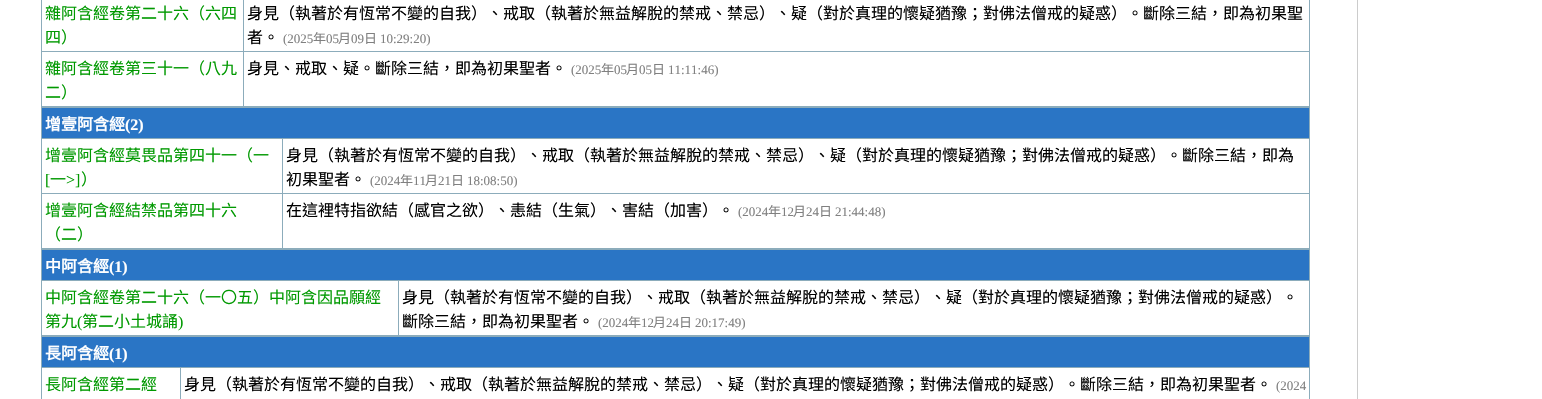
void draw(SkCanvas* canvas) {
  SkPaint paint;
  paint.setAntiAlias(true);
  auto face = [&](const char* family, int weight, float size, bool italic = false) {
    SkFontStyle style(weight, SkFontStyle::kNormal_Width,
      italic ? SkFontStyle::kItalic_Slant : SkFontStyle::kUpright_Slant);
    SkFont result(fontMgr->matchFamilyStyle(family, style), size);
    result.setSubpixel(true);
    return result;
  };
  canvas->clear(0xffffffff);
  {
    const struct { float x, y, w, h; SkColor color; } items[] = {
      {243, 51, 1067, 1, 0xff8cacbb},
      {1309, 0, 1, 107, 0xff8cacbb},
      {243, 106, 1067, 1, 0xff8cacbb},
      {243, 51, 1, 56, 0xff8cacbb},
      {41, 51, 203, 1, 0xff8cacbb},
      {243, 0, 1, 52, 0xff8cacbb},
      {41, 106, 203, 1, 0xff8cacbb},
      {41, 0, 1, 107, 0xff8cacbb},
      {42, 108, 1267, 30, 0xff2a75c5},
      {41, 107, 1269, 1, 0xff8cacbb},
      {282, 138, 1028, 1, 0xff8cacbb},
      {282, 193, 1028, 1, 0xff8cacbb},
      {1309, 193, 1, 56, 0xff8cacbb},
      {1309, 138, 1, 56, 0xff8cacbb},
      {1309, 107, 1, 32, 0xff8cacbb},
      {282, 248, 1028, 1, 0xff8cacbb},
      {282, 193, 1, 56, 0xff8cacbb},
      {41, 193, 242, 1, 0xff8cacbb},
      {282, 138, 1, 56, 0xff8cacbb},
      {41, 138, 242, 1, 0xff8cacbb},
      {41, 248, 242, 1, 0xff8cacbb},
      {41, 193, 1, 56, 0xff8cacbb},
      {41, 138, 1, 56, 0xff8cacbb},
      {41, 107, 1, 32, 0xff8cacbb},
      {42, 250, 1267, 30, 0xff2a75c5},
      {41, 249, 1269, 1, 0xff8cacbb},
      {398, 280, 912, 1, 0xff8cacbb},
      {1309, 280, 1, 56, 0xff8cacbb},
      {1309, 249, 1, 32, 0xff8cacbb},
      {398, 335, 912, 1, 0xff8cacbb},
      {398, 280, 1, 56, 0xff8cacbb},
      {41, 280, 358, 1, 0xff8cacbb},
      {41, 335, 358, 1, 0xff8cacbb},
      {41, 280, 1, 56, 0xff8cacbb},
      {41, 249, 1, 32, 0xff8cacbb},
      {42, 337, 1267, 30, 0xff2a75c5},
      {41, 336, 1269, 1, 0xff8cacbb},
      {180, 367, 1130, 1, 0xff8cacbb},
      {1309, 367, 1, 32, 0xff8cacbb},
      {1309, 336, 1, 32, 0xff8cacbb},
      {180, 367, 1, 32, 0xff8cacbb},
      {41, 367, 140, 1, 0xff8cacbb},
      {41, 367, 1, 32, 0xff8cacbb},
      {41, 336, 1, 32, 0xff8cacbb},
      {1357, 0, 1, 399, 0xffcccccc},
    };
    for (auto [x, y, w, h, color] : items) {
      paint.setColor(color);
      canvas->drawRect(SkRect::MakeXYWH(x, y, w, h), paint);
    }
  }
  auto f0 = face("Noto Sans CJK TC", 400, 16);
  paint.setColor(0xff009900);
  canvas->drawString("雜阿含經卷第二十六（六四", 45, 19, f0, paint);
  canvas->drawString("四）", 45, 43, f0, paint);
  paint.setColor(0xff000000);
  canvas->drawString("身見（執著於有恆常不變的自我）、戒取（執著於無益解脫的禁戒、禁忌）、疑（對於真理的懷疑猶豫；對佛法僧戒的疑惑）。斷除三結，即為初果聖", 247, 19, f0, paint);
  canvas->drawString("者。", 247, 43, f0, paint);
  auto f1 = face("Liberation Serif", 400, 13);
  paint.setColor(0xff808080);
  canvas->drawString("(2025", 283, 43, f1, paint);
  auto f2 = face("Noto Sans CJK TC", 400, 13);
  canvas->drawString("年", 313, 43, f2, paint);
  canvas->drawString("05", 326, 43, f1, paint);
  canvas->drawString("月", 338, 43, f2, paint);
  canvas->drawString("09", 351, 43, f1, paint);
  canvas->drawString("日", 364, 43, f2, paint);
  canvas->drawString("10:29:20)", 380, 43, f1, paint);
  paint.setColor(0xff009900);
  canvas->drawString("雜阿含經卷第三十一（八九", 45, 74, f0, paint);
  canvas->drawString("二）", 45, 98, f0, paint);
  paint.setColor(0xff000000);
  canvas->drawString("身見、戒取、疑。斷除三結，即為初果聖者。", 247, 74, f0, paint);
  paint.setColor(0xff808080);
  canvas->drawString("(2025", 571, 74, f1, paint);
  canvas->drawString("年", 601, 74, f2, paint);
  canvas->drawString("05", 614, 74, f1, paint);
  canvas->drawString("月", 626, 74, f2, paint);
  canvas->drawString("05", 639, 74, f1, paint);
  canvas->drawString("日", 652, 74, f2, paint);
  canvas->drawString("11:11:46)", 668, 74, f1, paint);
  auto f3 = face("Noto Sans CJK TC", 700, 16);
  paint.setColor(0xffffffff);
  canvas->drawString("增壹阿含經", 45, 130, f3, paint);
  auto f4 = face("Liberation Serif", 700, 16);
  canvas->drawString("(2)", 125, 130, f4, paint);
  paint.setColor(0xff009900);
  canvas->drawString("增壹阿含經莫畏品第四十一（一", 45, 161, f0, paint);
  auto f5 = face("Liberation Serif", 400, 16);
  canvas->drawString("[", 45, 185, f5, paint);
  canvas->drawString("一", 50, 185, f0, paint);
  canvas->drawString(">]", 66, 185, f5, paint);
  canvas->drawString("）", 81, 185, f0, paint);
  paint.setColor(0xff000000);
  canvas->drawString("身見（執著於有恆常不變的自我）、戒取（執著於無益解脫的禁戒、禁忌）、疑（對於真理的懷疑猶豫；對佛法僧戒的疑惑）。斷除三結，即為", 286, 161, f0, paint);
  canvas->drawString("初果聖者。", 286, 185, f0, paint);
  paint.setColor(0xff808080);
  canvas->drawString("(2024", 370, 185, f1, paint);
  canvas->drawString("年", 400, 185, f2, paint);
  canvas->drawString("11", 413, 185, f1, paint);
  canvas->drawString("月", 425, 185, f2, paint);
  canvas->drawString("21", 438, 185, f1, paint);
  canvas->drawString("日", 451, 185, f2, paint);
  canvas->drawString("18:08:50)", 467, 185, f1, paint);
  paint.setColor(0xff009900);
  canvas->drawString("增壹阿含經結禁品第四十六", 45, 216, f0, paint);
  canvas->drawString("（二）", 45, 240, f0, paint);
  paint.setColor(0xff000000);
  canvas->drawString("在這裡特指欲結（感官之欲）、恚結（生氣）、害結（加害）。", 286, 216, f0, paint);
  paint.setColor(0xff808080);
  canvas->drawString("(2024", 738, 216, f1, paint);
  canvas->drawString("年", 768, 216, f2, paint);
  canvas->drawString("12", 781, 216, f1, paint);
  canvas->drawString("月", 793, 216, f2, paint);
  canvas->drawString("24", 806, 216, f1, paint);
  canvas->drawString("日", 819, 216, f2, paint);
  canvas->drawString("21:44:48)", 835, 216, f1, paint);
  paint.setColor(0xffffffff);
  canvas->drawString("中阿含經", 45, 272, f3, paint);
  canvas->drawString("(1)", 109, 272, f4, paint);
  paint.setColor(0xff009900);
  canvas->drawString("中阿含經卷第二十六（一〇五）中阿含因品願經", 45, 303, f0, paint);
  canvas->drawString("第九", 45, 327, f0, paint);
  canvas->drawString("(", 77, 327, f5, paint);
  canvas->drawString("第二小土城誦", 82, 327, f0, paint);
  canvas->drawString(")", 178, 327, f5, paint);
  paint.setColor(0xff000000);
  canvas->drawString("身見（執著於有恆常不變的自我）、戒取（執著於無益解脫的禁戒、禁忌）、疑（對於真理的懷疑猶豫；對佛法僧戒的疑惑）。", 402, 303, f0, paint);
  canvas->drawString("斷除三結，即為初果聖者。", 402, 327, f0, paint);
  paint.setColor(0xff808080);
  canvas->drawString("(2024", 598, 327, f1, paint);
  canvas->drawString("年", 628, 327, f2, paint);
  canvas->drawString("12", 641, 327, f1, paint);
  canvas->drawString("月", 653, 327, f2, paint);
  canvas->drawString("24", 666, 327, f1, paint);
  canvas->drawString("日", 679, 327, f2, paint);
  canvas->drawString("20:17:49)", 695, 327, f1, paint);
  paint.setColor(0xffffffff);
  canvas->drawString("長阿含經", 45, 359, f3, paint);
  canvas->drawString("(1)", 109, 359, f4, paint);
  paint.setColor(0xff009900);
  canvas->drawString("長阿含經第二經", 45, 390, f0, paint);
  paint.setColor(0xff000000);
  canvas->drawString("身見（執著於有恆常不變的自我）、戒取（執著於無益解脫的禁戒、禁忌）、疑（對於真理的懷疑猶豫；對佛法僧戒的疑惑）。斷除三結，即為初果聖者。", 184, 390, f0, paint);
  paint.setColor(0xff808080);
  canvas->drawString("(2024", 1276, 390, f1, paint);
}
